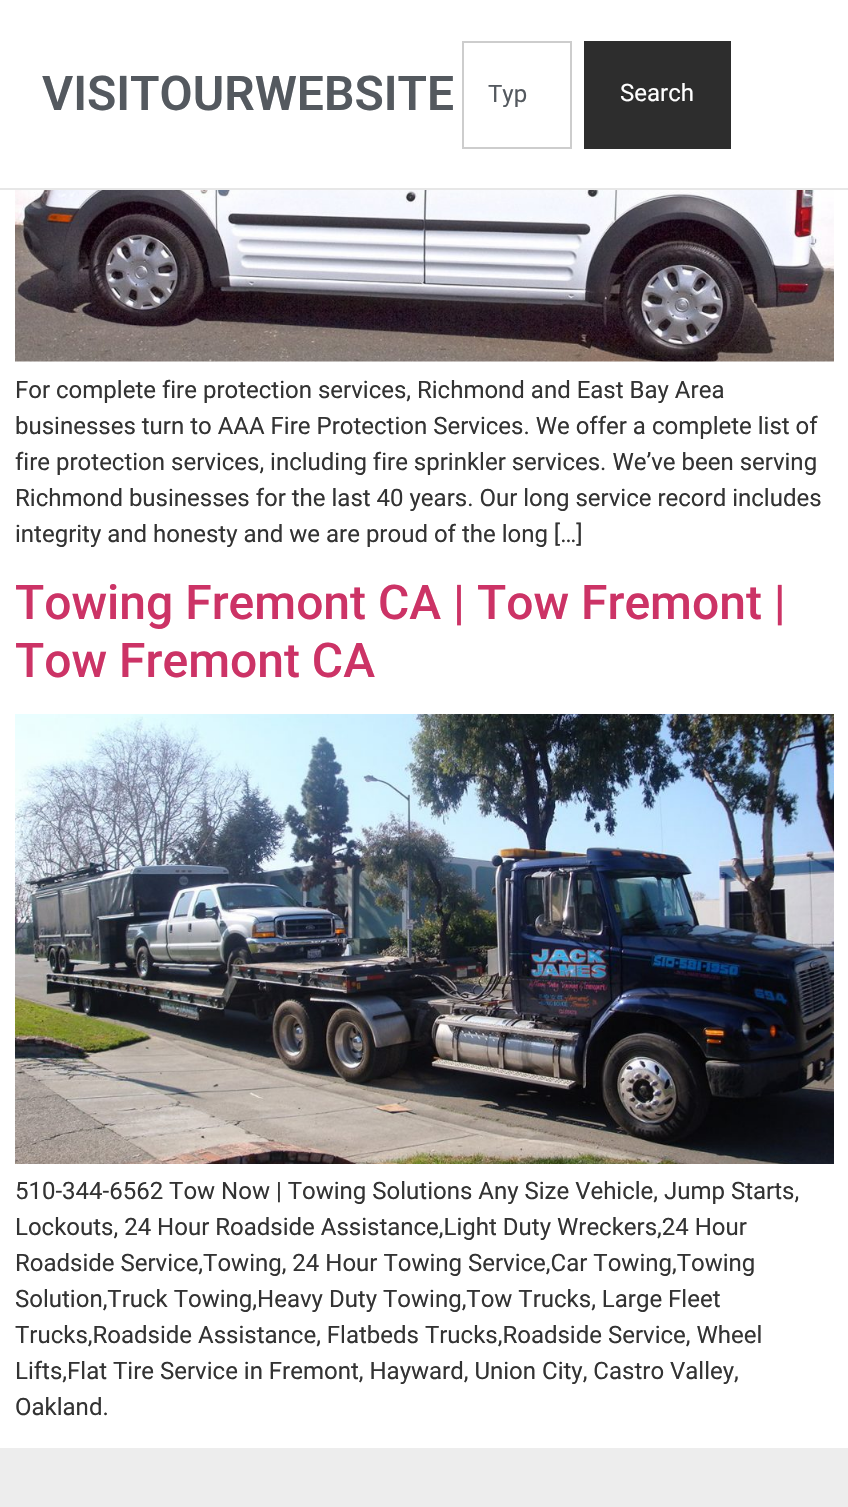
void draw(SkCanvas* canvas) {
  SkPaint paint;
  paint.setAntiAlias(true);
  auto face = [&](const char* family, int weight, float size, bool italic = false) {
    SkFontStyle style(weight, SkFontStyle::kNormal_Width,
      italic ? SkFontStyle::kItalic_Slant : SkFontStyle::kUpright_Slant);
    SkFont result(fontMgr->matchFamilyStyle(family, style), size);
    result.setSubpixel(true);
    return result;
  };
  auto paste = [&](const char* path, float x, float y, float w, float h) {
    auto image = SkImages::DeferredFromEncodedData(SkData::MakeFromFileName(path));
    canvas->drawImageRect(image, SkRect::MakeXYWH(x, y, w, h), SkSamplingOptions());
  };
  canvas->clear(0xffffffff);
  paint.setColor(0xffe7e7e7);
  canvas->drawRect(SkRect::MakeXYWH(0, 188, 848, 2), paint);
  paint.setStroke(true);
  paint.setStrokeWidth(2);
  paint.setColor(0xffcdcdcd);
  canvas->drawRect(SkRect::MakeXYWH(463, 42, 108, 106), paint);
  paint.setStroke(false);
  paint.setColor(0xff2d2d2d);
  canvas->drawRect(SkRect::MakeXYWH(584, 41, 147, 108), paint);
  paste("img/1.png", 15, 190, 819, 172);
  paste("img/2.png", 15, 714, 819, 450);
  paint.setColor(0xffededed);
  canvas->drawRect(SkRect::MakeXYWH(0, 1448, 848, 59), paint);
  auto f0 = face("Roboto", 600, 48);
  paint.setColor(0xff54595f);
  canvas->drawString("VISITOURWEBSITE", 42, 110, f0, paint);
  auto f1 = face("Roboto", 400, 24);
  canvas->drawString("Typ", 488, 102, f1, paint);
  paint.setColor(0xffffffff);
  canvas->drawString("Search", 620, 101, f1, paint);
  paint.setColor(0xff333333);
  {
    const struct { const char* s; float x, y; } items[] = {
      {"For complete fire protection services, Richmond and East Bay Area", 15, 398},
      {"businesses turn to AAA Fire Protection Services. We offer a complete list of", 15, 434},
      {"fire protection services, including fire sprinkler services. We’ve been serving", 15, 470},
      {"Richmond businesses for the last 40 years. Our long service record includes", 15, 506},
      {"integrity and honesty and we are proud of the long […]", 15, 542},
    };
    for (auto [s, x, y] : items) {
      canvas->drawString(s, x, y, f1, paint);
    }
  }
  auto f2 = face("Roboto", 500, 48);
  paint.setColor(0xffcc3366);
  canvas->drawString("Towing Fremont CA | Tow Fremont |", 15, 619, f2, paint);
  canvas->drawString("Tow Fremont CA", 15, 677, f2, paint);
  paint.setColor(0xff333333);
  {
    const struct { const char* s; float x, y; } items[] = {
      {"510-344-6562 Tow Now | Towing Solutions Any Size Vehicle, Jump Starts,", 15, 1199},
      {"Lockouts, 24 Hour Roadside Assistance,Light Duty Wreckers,24 Hour", 15, 1235},
      {"Roadside Service,Towing, 24 Hour Towing Service,Car Towing,Towing", 15, 1271},
      {"Solution,Truck Towing,Heavy Duty Towing,Tow Trucks, Large Fleet", 15, 1307},
      {"Trucks,Roadside Assistance, Flatbeds Trucks,Roadside Service, Wheel", 15, 1343},
      {"Lifts,Flat Tire Service in Fremont, Hayward, Union City, Castro Valley,", 15, 1379},
      {"Oakland.", 15, 1415},
    };
    for (auto [s, x, y] : items) {
      canvas->drawString(s, x, y, f1, paint);
    }
  }
}
